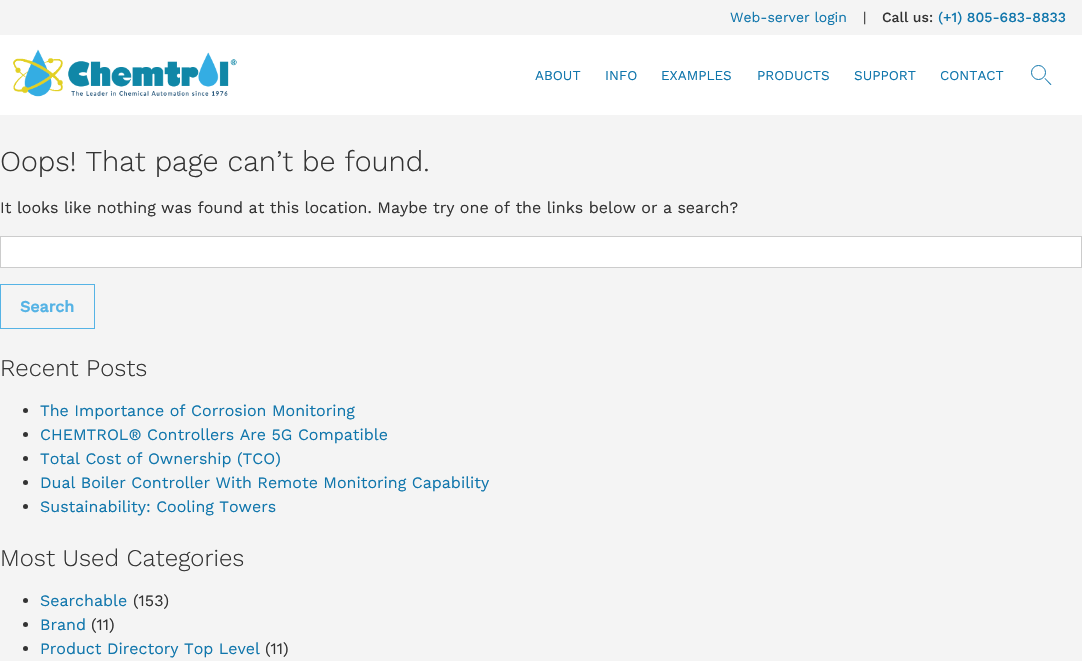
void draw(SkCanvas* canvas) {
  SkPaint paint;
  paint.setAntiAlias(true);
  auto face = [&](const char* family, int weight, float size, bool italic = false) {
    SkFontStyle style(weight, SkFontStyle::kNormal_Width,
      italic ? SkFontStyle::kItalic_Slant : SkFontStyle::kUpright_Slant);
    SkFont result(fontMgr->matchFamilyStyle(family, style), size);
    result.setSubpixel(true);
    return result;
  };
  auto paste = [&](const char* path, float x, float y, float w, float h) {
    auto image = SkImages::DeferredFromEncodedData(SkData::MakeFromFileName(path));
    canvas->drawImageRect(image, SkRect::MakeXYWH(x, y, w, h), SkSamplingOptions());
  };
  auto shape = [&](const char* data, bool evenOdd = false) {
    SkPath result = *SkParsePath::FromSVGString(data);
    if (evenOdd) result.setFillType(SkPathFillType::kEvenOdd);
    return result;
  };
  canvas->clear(0xfff4f4f4);
  paint.setColor(0xffffffff);
  canvas->drawRect(SkRect::MakeXYWH(0, 35, 1082, 80), paint);
  paste("img/1.png", 13, 49, 224, 48);
  paint.setStroke(true);
  paint.setStrokeWidth(1);
  paint.setColor(0xff1076ac);
  canvas->drawCircle(1038.5f, 72.5f, 7, paint);
  paint.setStroke(false);
  canvas->drawPath(shape("M1044.5 78.5L1045 78L1051.5 84.5L1050.5 85Z"), paint);
  paint.setColor(0xffffffff);
  canvas->drawRect(SkRect::MakeXYWH(0.5f, 236.5f, 1081, 31), paint);
  paint.setStroke(true);
  paint.setColor(0xffcccccc);
  canvas->drawRect(SkRect::MakeXYWH(0.5f, 236.5f, 1081, 31), paint);
  paint.setColor(0xff55b3e5);
  canvas->drawRect(SkRect::MakeXYWH(0.5f, 284.5f, 94, 44), paint);
  paint.setStroke(false);
  paint.setColor(0xff333333);
  canvas->drawCircle(25.5f, 410.5f, 2.5f, paint);
  canvas->drawCircle(25.5f, 434.5f, 2.5f, paint);
  canvas->drawCircle(25.5f, 458.5f, 2.5f, paint);
  canvas->drawCircle(25.5f, 482.5f, 2.5f, paint);
  canvas->drawCircle(25.5f, 506.5f, 2.5f, paint);
  canvas->drawCircle(25.5f, 600.5f, 2.5f, paint);
  canvas->drawCircle(25.5f, 624.5f, 2.5f, paint);
  canvas->drawCircle(25.5f, 648.5f, 2.5f, paint);
  auto f0 = face("Work Sans", 400, 14);
  paint.setColor(0xff1076ac);
  canvas->drawString("Web-server login", 730, 22, f0, paint);
  paint.setColor(0xff333333);
  canvas->drawString("|", 863, 22, f0, paint);
  auto f1 = face("Work Sans", 500, 14);
  canvas->drawString("Call us:", 882, 22, f1, paint);
  paint.setColor(0xff1076ac);
  canvas->drawString("(+1) 805-683-8833", 938, 22, f1, paint);
  auto f2 = face("Work Sans", 400, 13.5f);
  {
    const struct { const char* s; float x, y; } items[] = {
      {"ABOUT", 535, 80},
      {"INFO", 605, 80},
      {"EXAMPLES", 661, 80},
      {"PRODUCTS", 757, 80},
      {"SUPPORT", 854, 80},
      {"CONTACT", 940, 80},
    };
    for (auto [s, x, y] : items) {
      canvas->drawString(s, x, y, f2, paint);
    }
  }
  auto f3 = face("Work Sans", 300, 28.75f);
  paint.setColor(0xff333333);
  canvas->drawString("Oops! That page can’t be found.", 0, 171, f3, paint);
  auto f4 = face("Work Sans", 400, 16);
  canvas->drawString("It looks like nothing was found at this location. Maybe try one of the links below or a search?", 0, 213, f4, paint);
  auto f5 = face("Work Sans", 700, 16);
  paint.setColor(0xff55b3e5);
  canvas->drawString("Search", 20, 312, f5, paint);
  auto f6 = face("Work Sans", 300, 24);
  paint.setColor(0xff333333);
  canvas->drawString("Recent Posts", 0, 376, f6, paint);
  paint.setColor(0xff1076ac);
  {
    const struct { const char* s; float x, y; } items[] = {
      {"The Importance of Corrosion Monitoring", 40, 416},
      {"CHEMTROL® Controllers Are 5G Compatible", 40, 440},
      {"Total Cost of Ownership (TCO)", 40, 464},
      {"Dual Boiler Controller With Remote Monitoring Capability", 40, 488},
      {"Sustainability: Cooling Towers", 40, 512},
    };
    for (auto [s, x, y] : items) {
      canvas->drawString(s, x, y, f4, paint);
    }
  }
  paint.setColor(0xff333333);
  canvas->drawString("Most Used Categories", 0, 566, f6, paint);
  paint.setColor(0xff1076ac);
  canvas->drawString("Searchable", 40, 606, f4, paint);
  paint.setColor(0xff333333);
  canvas->drawString("(153)", 133, 606, f4, paint);
  paint.setColor(0xff1076ac);
  canvas->drawString("Brand", 40, 630, f4, paint);
  paint.setColor(0xff333333);
  canvas->drawString("(11)", 91, 630, f4, paint);
  paint.setColor(0xff1076ac);
  canvas->drawString("Product Directory Top Level", 40, 654, f4, paint);
  paint.setColor(0xff333333);
  canvas->drawString("(11)", 265, 654, f4, paint);
}
